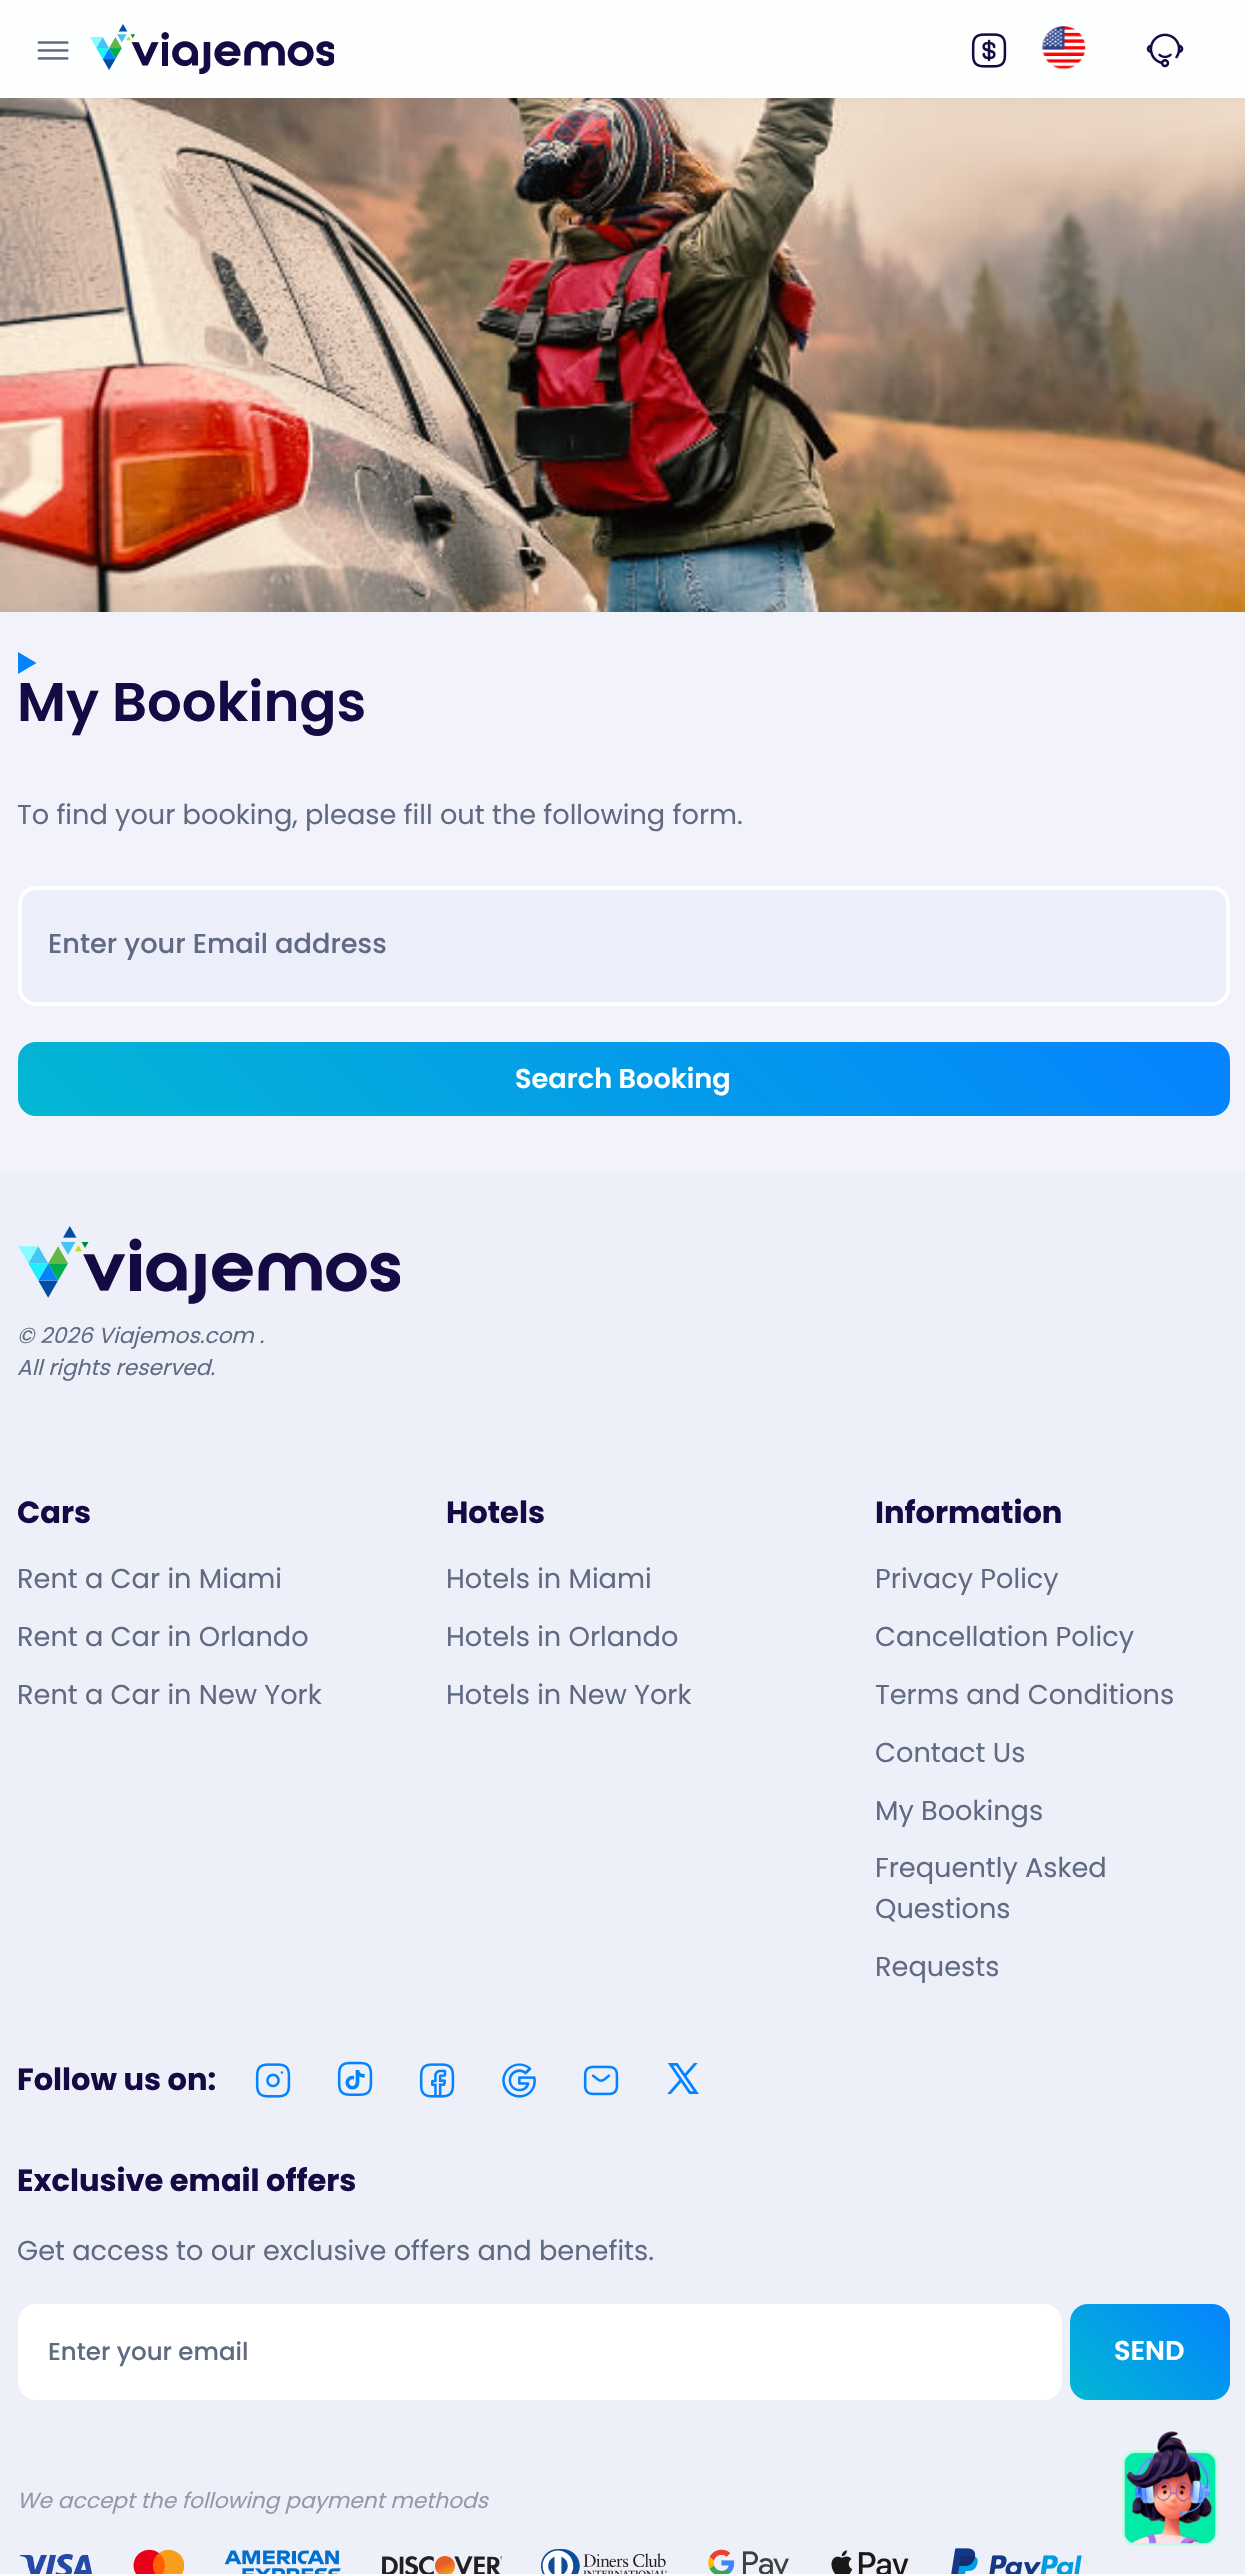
void draw(SkCanvas* canvas) {
  SkPaint paint;
  paint.setAntiAlias(true);
  auto face = [&](const char* family, int weight, float size, bool italic = false) {
    SkFontStyle style(weight, SkFontStyle::kNormal_Width,
      italic ? SkFontStyle::kItalic_Slant : SkFontStyle::kUpright_Slant);
    SkFont result(fontMgr->matchFamilyStyle(family, style), size);
    result.setSubpixel(true);
    return result;
  };
  auto paste = [&](const char* path, float x, float y, float w, float h) {
    auto image = SkImages::DeferredFromEncodedData(SkData::MakeFromFileName(path));
    canvas->drawImageRect(image, SkRect::MakeXYWH(x, y, w, h), SkSamplingOptions());
  };
  auto shape = [&](const char* data, bool evenOdd = false) {
    SkPath result = *SkParsePath::FromSVGString(data);
    if (evenOdd) result.setFillType(SkPathFillType::kEvenOdd);
    return result;
  };
  canvas->clear(0xfff2f3fa);
  paste("img/6.png", 0, 98, 1245, 514);
  paint.setColor(0x0f454550);
  paint.setMaskFilter(SkMaskFilter::MakeBlur(kNormal_SkBlurStyle, 6));
  canvas->drawRect(SkRect::MakeXYWH(0, 0, 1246, 98), paint);
  paint.setMaskFilter(nullptr);
  paint.setColor(0xfffdfefe);
  canvas->drawRect(SkRect::MakeXYWH(0, 0, 1245, 98), paint);
  paste("img/1.png", 37, 41, 32, 19);
  paste("img/2.png", 90, 24, 244, 50);
  paste("img/3.png", 971, 33, 36, 35);
  paste("img/4.png", 1041, 26, 45, 44);
  paste("img/5.png", 1146, 33, 38, 35);
  paint.setColor(0xff0583ff);
  canvas->drawPath(shape("M36.5 663L18 674V652Z"), paint);
  paint.setColor(0xffeceef9);
  canvas->drawRoundRect(SkRect::MakeXYWH(20, 888, 1208, 116), 16, 16, paint);
  paint.setStroke(true);
  paint.setStrokeWidth(4);
  paint.setColor(0xffffffff);
  canvas->drawRoundRect(SkRect::MakeXYWH(20, 888, 1208, 116), 16, 16, paint);
  paint.setStroke(false);
  {
    const SkColor colors[] = {0xff00eba7, 0xff0583ff};
    const float stops[] = {0, 1};
    const SkPoint ends[] = {{-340, 2044}, {946, 758}};
    paint.setShader(SkGradientShader::MakeLinear(ends, colors, stops, 2, SkTileMode::kClamp));
    paint.setAlpha(255);
  }
  canvas->drawRoundRect(SkRect::MakeXYWH(18, 1042, 1212, 74), 18, 18, paint);
  paint.setShader(nullptr);
  paint.setColor(0xffeef0f9);
  canvas->drawRect(SkRect::MakeXYWH(0, 1172, 1245, 1402), paint);
  paste("img/7.png", 1122, 2431, 96, 115);
  paste("img/8.png", 18, 1226, 382, 78);
  paste("img/9.png", 255, 2063, 36, 35);
  paste("img/10.png", 337, 2061, 36, 35);
  paste("img/11.png", 419, 2063, 36, 35);
  paste("img/12.png", 502, 2063, 34, 35);
  paste("img/13.png", 583, 2065, 36, 31);
  paste("img/14.png", 667, 2063, 32, 31);
  paint.setColor(0xffffffff);
  canvas->drawRoundRect(SkRect::MakeXYWH(20, 2306, 1040, 92), 16, 16, paint);
  paint.setStroke(true);
  canvas->drawRoundRect(SkRect::MakeXYWH(20, 2306, 1040, 92), 16, 16, paint);
  paint.setStroke(false);
  {
    const SkColor colors[] = {0xff00eba7, 0xff0583ff};
    const float stops[] = {0, 1};
    const SkPoint ends[] = {{958, 2544}, {1214, 2288}};
    paint.setShader(SkGradientShader::MakeLinear(ends, colors, stops, 2, SkTileMode::kClamp));
    paint.setAlpha(255);
  }
  canvas->drawRoundRect(SkRect::MakeXYWH(1070, 2304, 160, 96), 18, 18, paint);
  {
    const SkColor colors[] = {0xff222357, 0xff254aa5};
    const float stops[] = {0, 1};
    const SkPoint ends[] = {{6.1f, 2516}, {6.3f, 2516}};
    paint.setShader(SkGradientShader::MakeLinear(ends, colors, stops, 2, SkTileMode::kClamp));
    paint.setAlpha(255);
  }
  canvas->drawPath(shape("M58 2562H57C58 2554 67 2553 73 2555L72 2560C70 2559 68 2559 66 2559C59 2560 70 2566 71 2567C72 2568 72 2570 72 2572C71 2574 70 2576 68 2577C64 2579 59 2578 55 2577L56 2572C58 2573 67 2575 66 2571C65 2568 59 2568 58 2563ZM41 2555H47L38 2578H32L28 2566C27 2558 27 2557 20 2556V2555H30C31 2555 32 2556 33 2557L35 2570ZM50 2555H56L51 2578H45ZM83 2555H88L93 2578H87V2574H79L78 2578H72L80 2557C81 2556 82 2555 83 2555ZM84 2561L81 2570H86Z", true), paint);
  paste("img/15.png", 133, 2549, 51, 25);
  paste("img/16.png", 224, 2550, 117, 24);
  paste("img/17.png", 382, 2556, 120, 18);
  paste("img/18.png", 541, 2549, 126, 25);
  paste("img/19.png", 708, 2549, 81, 25);
  paste("img/20.png", 831, 2550, 78, 24);
  paste("img/21.png", 951, 2548, 131, 26);
  auto f0 = face("Poppins", 600, 54.5f);
  paint.setShader(nullptr);
  paint.setColor(0xff150a44);
  canvas->drawString("My Bookings", 17, 721, f0, paint);
  auto f1 = face("Poppins", 400, 27.2f);
  paint.setColor(0xff606a82);
  canvas->drawString("To find your booking, please fill out the following form.", 17, 824, f1, paint);
  auto f2 = face("Poppins", 500, 27.2f);
  canvas->drawString("Enter your Email address", 48, 953, f2, paint);
  auto f3 = face("Poppins", 600, 27.2f);
  paint.setColor(0xffffffff);
  canvas->drawString("Search Booking", 515, 1088, f3, paint);
  auto f4 = face("Poppins", 400, 21.75f, true);
  paint.setColor(0xff606a82);
  canvas->drawString("© 2026 Viajemos.com .", 17, 1343, f4, paint);
  canvas->drawString("All rights reserved.", 17, 1375, f4, paint);
  auto f5 = face("Poppins", 700, 30.5f);
  paint.setColor(0xff150a44);
  canvas->drawString("Cars", 17, 1523, f5, paint);
  paint.setColor(0xff606a82);
  {
    const struct { const char* s; float x, y; } items[] = {
      {"Rent a Car in Miami", 17, 1588},
      {"Rent a Car in Orlando", 17, 1646},
      {"Rent a Car in New York", 17, 1704},
    };
    for (auto [s, x, y] : items) {
      canvas->drawString(s, x, y, f1, paint);
    }
  }
  paint.setColor(0xff150a44);
  canvas->drawString("Hotels", 446, 1523, f5, paint);
  paint.setColor(0xff606a82);
  {
    const struct { const char* s; float x, y; } items[] = {
      {"Hotels in Miami", 446, 1588},
      {"Hotels in Orlando", 446, 1646},
      {"Hotels in New York", 446, 1704},
    };
    for (auto [s, x, y] : items) {
      canvas->drawString(s, x, y, f1, paint);
    }
  }
  paint.setColor(0xff150a44);
  canvas->drawString("Information", 875, 1523, f5, paint);
  paint.setColor(0xff606a82);
  {
    const struct { const char* s; float x, y; } items[] = {
      {"Privacy Policy", 875, 1588},
      {"Cancellation Policy", 875, 1646},
      {"Terms and Conditions", 875, 1704},
      {"Contact Us", 875, 1762},
      {"My Bookings", 875, 1820},
      {"Frequently Asked", 875, 1877},
      {"Questions", 875, 1918},
      {"Requests", 875, 1976},
    };
    for (auto [s, x, y] : items) {
      canvas->drawString(s, x, y, f1, paint);
    }
  }
  paint.setColor(0xff150a44);
  canvas->drawString("Follow us on:", 17, 2090, f5, paint);
  canvas->drawString("Exclusive email offers", 17, 2191, f5, paint);
  paint.setColor(0xff606a82);
  canvas->drawString("Get access to our exclusive offers and benefits.", 17, 2260, f1, paint);
  auto f6 = face("Poppins", 500, 24.5f);
  canvas->drawString("Enter your email", 48, 2360, f6, paint);
  paint.setColor(0xffffffff);
  canvas->drawString("SEND", 1114, 2360, f3, paint);
  paint.setColor(0xff9399aa);
  canvas->drawString("We accept the following payment methods", 17, 2508, f4, paint);
}
